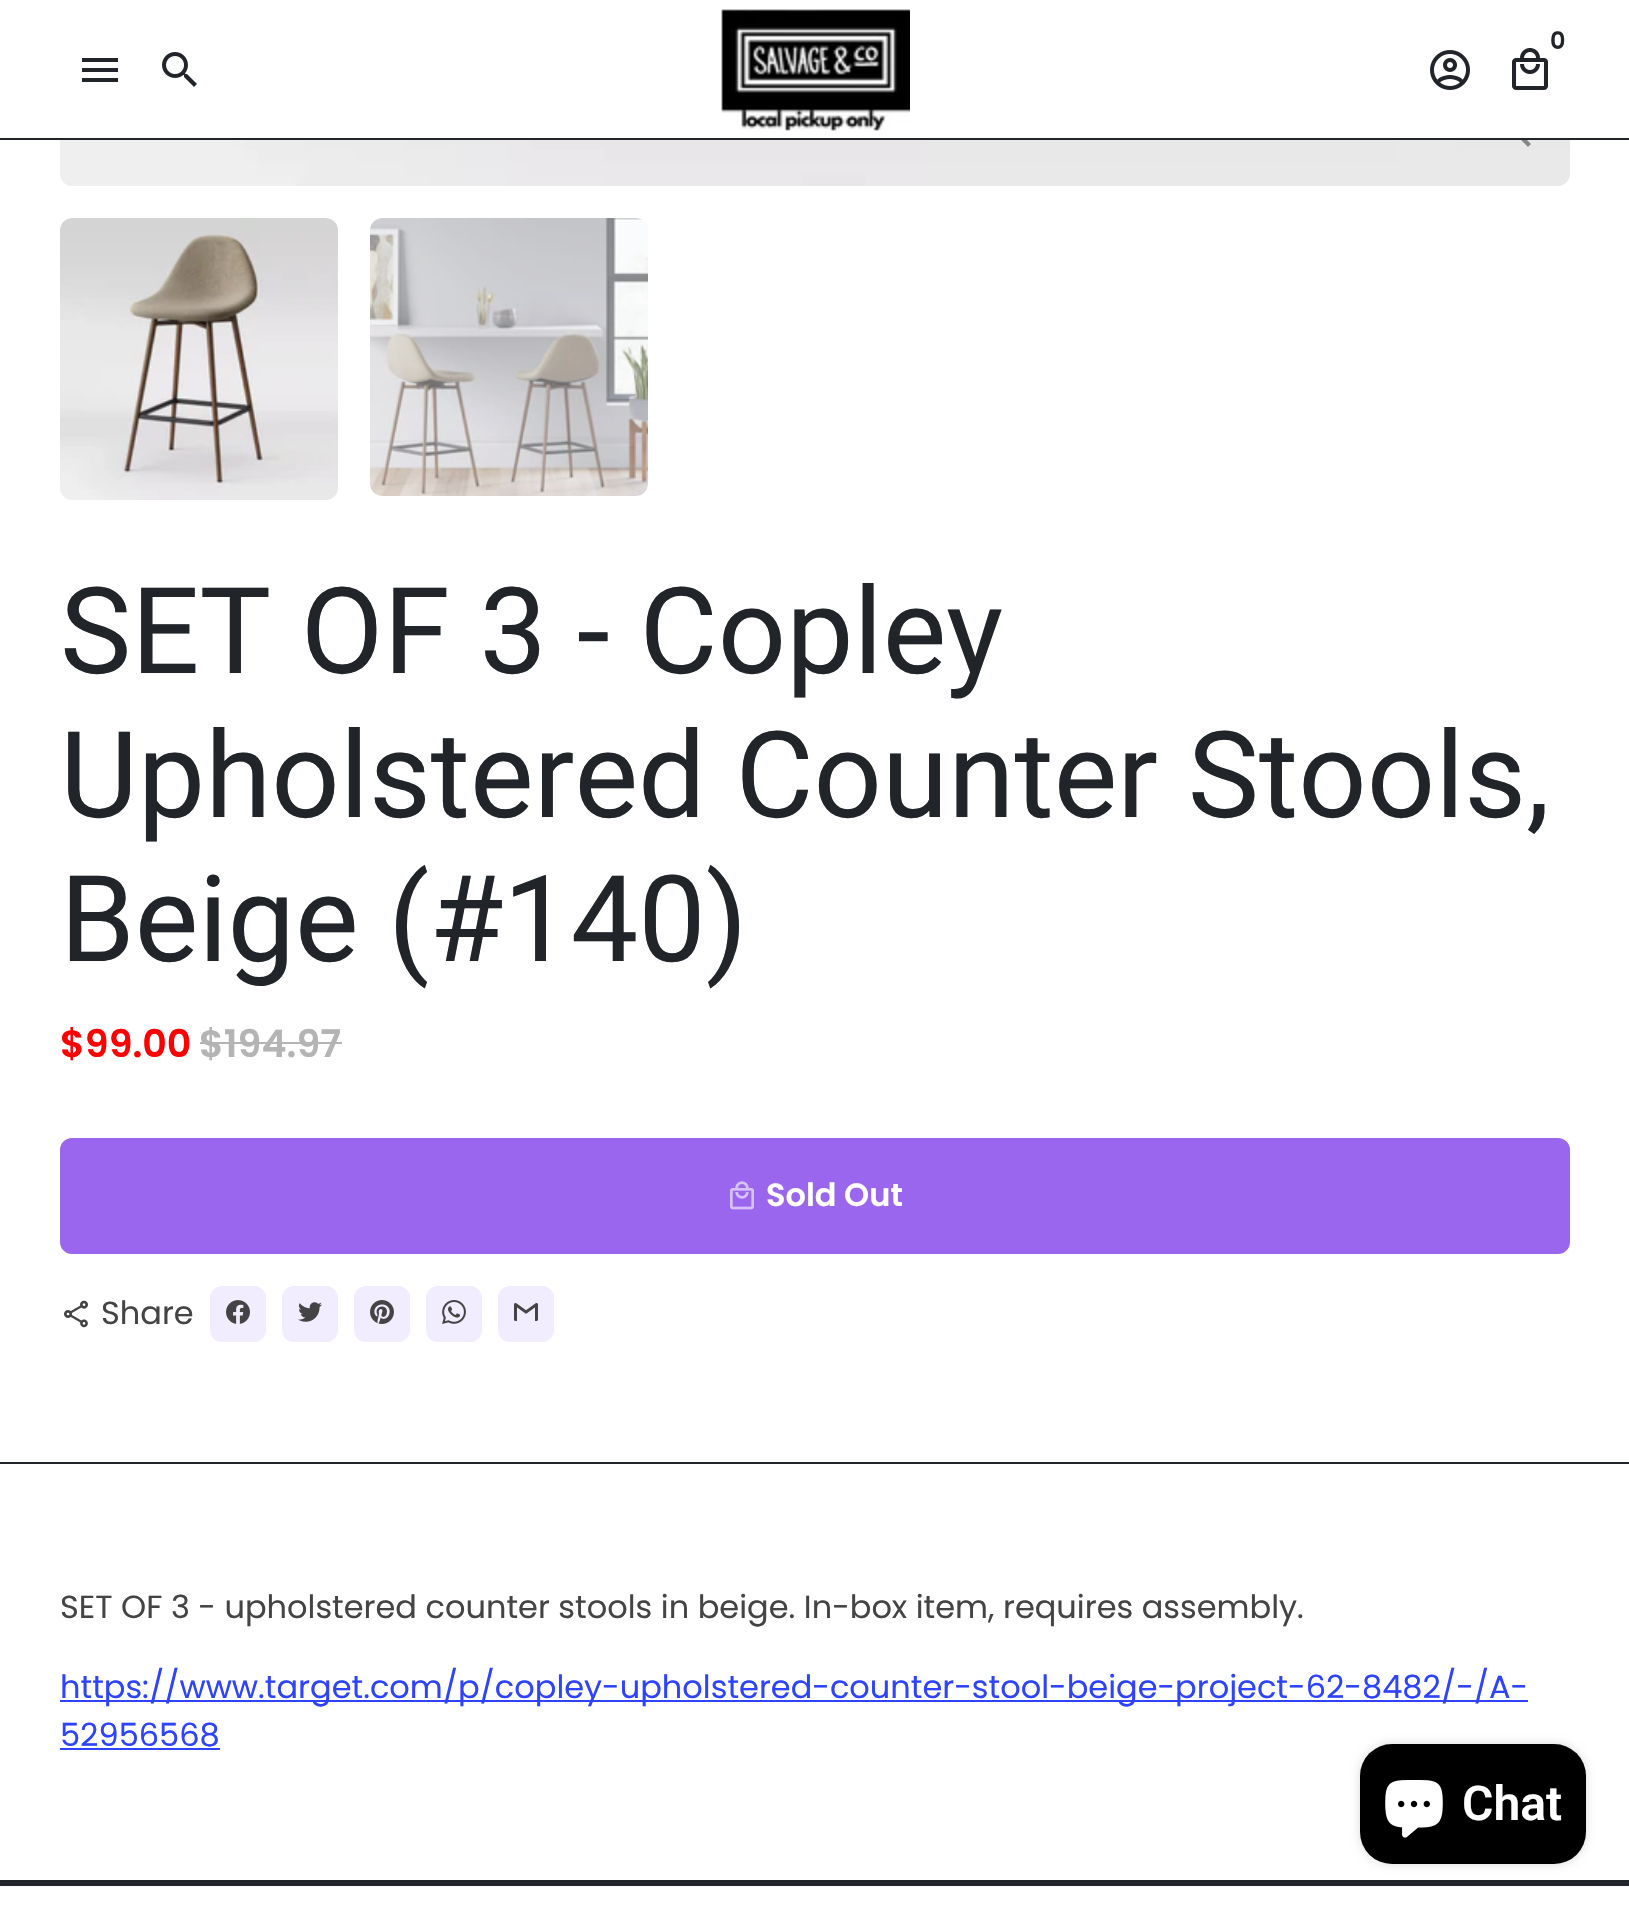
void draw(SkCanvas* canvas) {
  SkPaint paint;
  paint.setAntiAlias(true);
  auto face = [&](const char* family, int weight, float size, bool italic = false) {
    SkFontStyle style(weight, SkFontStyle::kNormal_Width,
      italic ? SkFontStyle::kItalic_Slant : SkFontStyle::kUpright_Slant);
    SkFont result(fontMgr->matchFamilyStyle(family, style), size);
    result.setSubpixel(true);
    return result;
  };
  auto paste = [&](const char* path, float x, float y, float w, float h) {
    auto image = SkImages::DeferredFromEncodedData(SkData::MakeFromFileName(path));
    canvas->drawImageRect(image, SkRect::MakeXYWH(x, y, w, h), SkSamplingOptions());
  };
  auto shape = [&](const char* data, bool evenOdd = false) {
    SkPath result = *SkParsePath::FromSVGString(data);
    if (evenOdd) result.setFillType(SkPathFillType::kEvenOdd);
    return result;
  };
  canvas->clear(0xffffffff);
  paint.setColor(0xfffaf8ff);
  canvas->drawRoundRect(SkRect::MakeXYWH(60, -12, 1510, 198), 12, 12, paint);
  paint.setColor(0xffffffff);
  canvas->drawRect(SkRect::MakeXYWH(60, 0, 1510, 138), paint);
  paint.setColor(0xff212529);
  canvas->drawRect(SkRect::MakeXYWH(0, 138, 1629, 2), paint);
  paste("img/1.png", 721, 9, 189, 122);
  paste("img/2.png", 1512, 48, 36, 42);
  paste("img/3.png", 1430, 50, 40, 40);
  canvas->drawPath(shape("M82 82H118V78H82ZM82 72H118V68H82ZM82 58V62H118V58Z"), paint);
  paste("img/4.png", 162, 52, 35, 35);
  paste("img/5.png", 60, 140, 1510, 46);
  paste("img/6.png", 1521, 140, 10, 7);
  paint.setColor(0xfffaf8ff);
  canvas->drawRoundRect(SkRect::MakeXYWH(60, 218, 278, 282), 12, 12, paint);
  paste("img/7.png", 60, 218, 278, 282);
  paint.setColor(0xfffcfbff);
  canvas->drawRoundRect(SkRect::MakeXYWH(370, 218, 278, 278), 12, 12, paint);
  paste("img/8.png", 370, 218, 278, 278);
  paint.setColor(0xffb4b4b4);
  canvas->drawRect(SkRect::MakeXYWH(200, 1042, 142, 2), paint);
  paint.setColor(0xff9a66ee);
  canvas->drawRoundRect(SkRect::MakeXYWH(61, 1139, 1508, 114), 11, 11, paint);
  paint.setStroke(true);
  paint.setStrokeWidth(2);
  canvas->drawRoundRect(SkRect::MakeXYWH(61, 1139, 1508, 114), 11, 11, paint);
  paste("img/9.png", 730, 1181, 24, 29);
  paste("img/10.png", 64, 1300, 24, 28);
  paint.setStroke(false);
  paint.setColor(0xfff2ecff);
  canvas->drawRoundRect(SkRect::MakeXYWH(211, 1287, 54, 54), 11, 11, paint);
  paint.setStroke(true);
  canvas->drawRoundRect(SkRect::MakeXYWH(211, 1287, 54, 54), 11, 11, paint);
  paste("img/11.png", 226, 1300, 24, 24);
  paint.setStroke(false);
  canvas->drawRoundRect(SkRect::MakeXYWH(283, 1287, 54, 54), 11, 11, paint);
  paint.setStroke(true);
  canvas->drawRoundRect(SkRect::MakeXYWH(283, 1287, 54, 54), 11, 11, paint);
  paste("img/12.png", 298, 1302, 24, 20);
  paint.setStroke(false);
  canvas->drawRoundRect(SkRect::MakeXYWH(355, 1287, 54, 54), 11, 11, paint);
  paint.setStroke(true);
  canvas->drawRoundRect(SkRect::MakeXYWH(355, 1287, 54, 54), 11, 11, paint);
  paste("img/13.png", 370, 1300, 24, 24);
  paint.setStroke(false);
  canvas->drawRoundRect(SkRect::MakeXYWH(427, 1287, 54, 54), 11, 11, paint);
  paint.setStroke(true);
  canvas->drawRoundRect(SkRect::MakeXYWH(427, 1287, 54, 54), 11, 11, paint);
  paste("img/14.png", 442, 1300, 24, 24);
  paint.setStroke(false);
  canvas->drawRoundRect(SkRect::MakeXYWH(499, 1287, 54, 54), 11, 11, paint);
  paint.setStroke(true);
  canvas->drawRoundRect(SkRect::MakeXYWH(499, 1287, 54, 54), 11, 11, paint);
  paste("img/15.png", 514, 1303, 24, 18);
  paint.setStroke(false);
  {
    const struct { float x, y, w, h; SkColor color; } items[] = {
      {0, 1462, 1629, 2, 0xff212529},
      {60, 1700, 1468, 2, 0xff2d43ff},
      {60, 1748, 160, 2, 0xff2d43ff},
      {0, 1880, 1629, 4, 0xff212529},
      {0, 1884, 1629, 2, 0xff212529},
    };
    for (auto [x, y, w, h, color] : items) {
      paint.setColor(color);
      canvas->drawRect(SkRect::MakeXYWH(x, y, w, h), paint);
    }
  }
  paint.setColor(0x26000000);
  paint.setMaskFilter(SkMaskFilter::MakeBlur(kNormal_SkBlurStyle, 5));
  canvas->drawRoundRect(SkRect::MakeXYWH(1360, 1744, 226, 120), 32, 32, paint);
  paint.setMaskFilter(nullptr);
  paint.setColor(0xff000000);
  canvas->drawRoundRect(SkRect::MakeXYWH(1360, 1744, 226, 120), 32, 32, paint);
  paste("img/16.png", 1385, 1780, 58, 58);
  auto f0 = face("Poppins", 600, 24);
  paint.setColor(0xff212529);
  canvas->drawString("0", 1550, 49, f0, paint);
  auto f1 = face("Roboto", 400, 120);
  {
    const struct { const char* s; float x, y; } items[] = {
      {"SET OF 3 - Copley", 60, 673},
      {"Upholstered Counter Stools,", 60, 817},
      {"Beige (#140)", 60, 961},
    };
    for (auto [s, x, y] : items) {
      canvas->drawString(s, x, y, f1, paint);
    }
  }
  auto f2 = face("Poppins", 600, 38);
  paint.setColor(0xffff0000);
  canvas->drawString("$99.00", 60, 1057, f2, paint);
  paint.setColor(0xffb4b4b4);
  canvas->drawString("$194.97", 199, 1057, f2, paint);
  auto f3 = face("Poppins", 600, 32);
  paint.setColor(0xffffffff);
  canvas->drawString("Sold Out", 766, 1206, f3, paint);
  auto f4 = face("Poppins", 400, 32);
  paint.setColor(0xff444444);
  canvas->drawString("Share", 101, 1324, f4, paint);
  canvas->drawString("SET OF 3 - upholstered counter stools in beige. In-box item, requires assembly.", 60, 1618, f4, paint);
  paint.setColor(0xff2d43ff);
  canvas->drawString("https://www.target.com/p/copley-upholstered-counter-stool-beige-project-62-8482/-/A-", 60, 1698, f4, paint);
  canvas->drawString("52956568", 60, 1746, f4, paint);
  auto f5 = face("Roboto", 600, 48);
  paint.setColor(0xffffffff);
  canvas->drawString("Chat", 1462, 1820, f5, paint);
}
